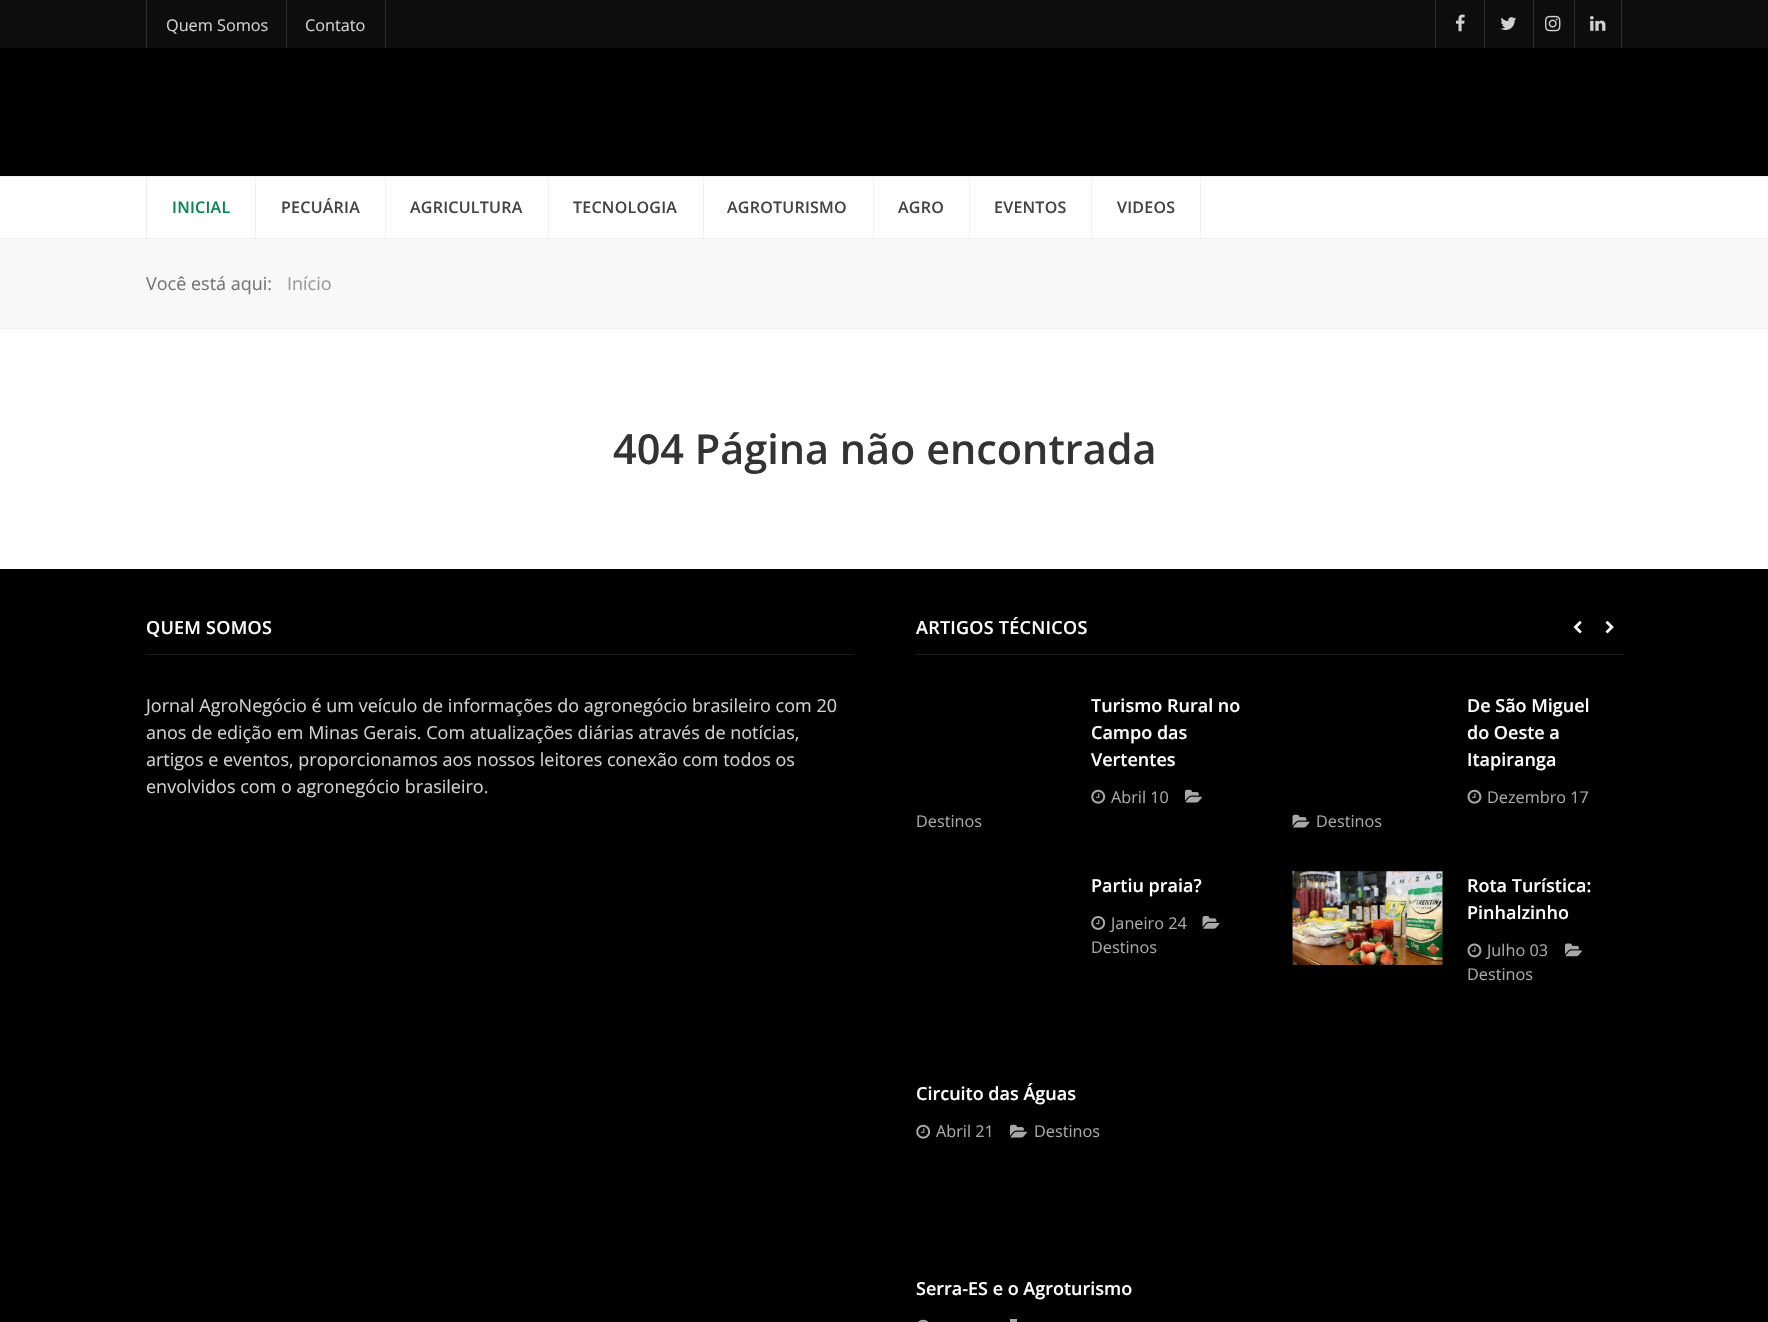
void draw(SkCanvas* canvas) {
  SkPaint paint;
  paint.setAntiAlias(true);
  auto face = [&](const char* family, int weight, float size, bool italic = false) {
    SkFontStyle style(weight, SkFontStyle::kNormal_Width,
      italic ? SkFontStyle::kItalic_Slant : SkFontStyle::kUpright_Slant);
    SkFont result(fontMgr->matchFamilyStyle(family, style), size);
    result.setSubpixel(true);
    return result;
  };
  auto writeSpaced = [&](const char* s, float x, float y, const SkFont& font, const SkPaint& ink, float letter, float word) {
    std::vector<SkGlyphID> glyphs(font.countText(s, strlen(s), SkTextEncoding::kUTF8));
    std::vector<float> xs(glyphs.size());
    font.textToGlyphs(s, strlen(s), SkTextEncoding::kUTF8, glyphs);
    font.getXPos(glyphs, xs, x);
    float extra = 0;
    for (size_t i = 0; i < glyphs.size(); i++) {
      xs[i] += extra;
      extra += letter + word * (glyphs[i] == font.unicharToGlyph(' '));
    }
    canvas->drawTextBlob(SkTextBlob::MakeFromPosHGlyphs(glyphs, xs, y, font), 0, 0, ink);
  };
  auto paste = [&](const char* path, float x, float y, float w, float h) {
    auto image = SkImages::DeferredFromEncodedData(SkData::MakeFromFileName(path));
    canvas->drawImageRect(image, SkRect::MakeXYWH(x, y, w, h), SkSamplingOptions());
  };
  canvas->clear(0xffffffff);
  {
    const struct { float x, y, w, h; SkColor color; } items[] = {
      {0, 0, 1768, 48, 0xff0d0d0d},
      {286, 0, 1, 48, 0xff2c2c2c},
      {146, 0, 1, 48, 0xff2c2c2c},
      {385, 0, 1, 48, 0xff2c2c2c},
      {1484, 0, 1, 48, 0xff2c2c2c},
      {1435, 0, 1, 48, 0xff2c2c2c},
    };
    for (auto [x, y, w, h, color] : items) {
      paint.setColor(color);
      canvas->drawRect(SkRect::MakeXYWH(x, y, w, h), paint);
    }
  }
  paste("img/1.png", 1455, 14, 10, 18);
  canvas->drawRect(SkRect::MakeXYWH(1533, 0, 1, 48), paint);
  paste("img/2.png", 1500, 17, 17, 13);
  canvas->drawRect(SkRect::MakeXYWH(1574, 0, 1, 48), paint);
  paste("img/3.png", 1545, 15, 16, 17);
  canvas->drawRect(SkRect::MakeXYWH(1621, 0, 1, 48), paint);
  paste("img/4.png", 1590, 16, 16, 15);
  {
    const struct { float x, y, w, h; SkColor color; } items[] = {
      {0, 48, 1768, 128, 0xff000000},
      {0, 176, 1768, 1, 0xffefefef},
      {0, 238, 1768, 1, 0xffefefef},
      {255, 178, 1, 60, 0xffefefef},
      {146, 178, 1, 60, 0xffefefef},
      {385, 178, 1, 60, 0xffefefef},
      {548, 178, 1, 60, 0xffefefef},
      {703, 178, 1, 60, 0xffefefef},
      {873, 178, 1, 60, 0xffefefef},
      {969, 178, 1, 60, 0xffefefef},
      {1091, 178, 1, 60, 0xffefefef},
      {1200, 178, 1, 60, 0xffefefef},
      {0, 239, 1768, 89, 0xfff8f8f8},
      {0, 328, 1768, 1, 0xffefefef},
      {0, 569, 1768, 753, 0xff000000},
      {146, 654, 708, 1, 0xff1a1a1a},
      {916, 654, 708, 1, 0xff1a1a1a},
    };
    for (auto [x, y, w, h, color] : items) {
      paint.setColor(color);
      canvas->drawRect(SkRect::MakeXYWH(x, y, w, h), paint);
    }
  }
  paste("img/5.png", 1573, 621, 9, 13);
  paste("img/6.png", 1605, 621, 9, 13);
  paste("img/7.png", 1091, 789, 15, 15);
  paste("img/8.png", 1185, 789, 17, 14);
  paste("img/9.png", 1091, 916, 15, 14);
  paste("img/10.png", 1202, 916, 18, 13);
  paste("img/11.png", 1467, 789, 15, 15);
  paste("img/12.png", 1292, 814, 18, 14);
  paste("img/13.png", 1292, 871, 151, 94);
  paste("img/14.png", 1467, 943, 15, 15);
  paste("img/15.png", 1565, 943, 17, 14);
  paste("img/7.png", 916, 1124, 15, 15);
  paste("img/8.png", 1010, 1124, 17, 14);
  paste("img/16.png", 918, 1319, 11, 3);
  paint.setColor(0xffa8a8a8);
  canvas->drawRect(SkRect::MakeXYWH(1010, 1319, 7, 3), paint);
  auto f0 = face("Open Sans", 400, 16.25f);
  paint.setColor(0xffd1d1d1);
  canvas->drawString("Quem Somos", 166, 31, f0, paint);
  canvas->drawString("Contato", 305, 31, f0, paint);
  auto f1 = face("Open Sans", 600, 16);
  paint.setColor(0xff098451);
  writeSpaced("INICIAL", 172, 213, f1, paint, 0.25f, 0);
  paint.setColor(0xff444444);
  {
    const struct { const char* s; float x, y; } items[] = {
      {"PECUÁRIA", 281, 213},
      {"AGRICULTURA", 410, 213},
      {"TECNOLOGIA", 573, 213},
      {"AGROTURISMO", 727, 213},
      {"AGRO", 898, 213},
      {"EVENTOS", 994, 213},
      {"VIDEOS", 1117, 213},
    };
    for (auto [s, x, y] : items) {
      writeSpaced(s, x, y, f1, paint, 0.25f, 0);
    }
  }
  auto f2 = face("Open Sans", 400, 18);
  paint.setColor(0xff757575);
  canvas->drawString("Você está aqui:", 146, 290, f2, paint);
  paint.setColor(0xff999999);
  canvas->drawString("Início", 287, 290, f2, paint);
  auto f3 = face("Open Sans", 600, 41.4f);
  paint.setColor(0xff333333);
  canvas->drawString("404 Página não encontrada", 613, 464, f3, paint);
  auto f4 = face("Open Sans", 600, 18);
  paint.setColor(0xffffffff);
  writeSpaced("QUEM SOMOS", 146, 634, f4, paint, 0.25f, 0);
  paint.setColor(0xffd1d1d1);
  {
    const struct { const char* s; float x, y; } items[] = {
      {"Jornal AgroNegócio é um veículo de informações do agronegócio brasileiro com 20", 146, 712},
      {"anos de edição em Minas Gerais. Com atualizações diárias através de notícias,", 146, 739},
      {"artigos e eventos, proporcionamos aos nossos leitores conexão com todos os", 146, 766},
      {"envolvidos com o agronegócio brasileiro.", 146, 793},
    };
    for (auto [s, x, y] : items) {
      canvas->drawString(s, x, y, f2, paint);
    }
  }
  paint.setColor(0xffffffff);
  writeSpaced("ARTIGOS TÉCNICOS", 916, 634, f4, paint, 0.25f, 0);
  {
    const struct { const char* s; float x, y; } items[] = {
      {"Turismo Rural no", 1091, 712},
      {"Campo das", 1091, 739},
      {"Vertentes", 1091, 766},
    };
    for (auto [s, x, y] : items) {
      canvas->drawString(s, x, y, f4, paint);
    }
  }
  paint.setColor(0xffa8a8a8);
  canvas->drawString("Abril 10", 1111, 803, f0, paint);
  canvas->drawString("Destinos", 916, 827, f0, paint);
  paint.setColor(0xffffffff);
  canvas->drawString("Partiu praia?", 1091, 892, f4, paint);
  paint.setColor(0xffa8a8a8);
  canvas->drawString("Janeiro 24", 1111, 929, f0, paint);
  canvas->drawString("Destinos", 1091, 953, f0, paint);
  paint.setColor(0xffffffff);
  {
    const struct { const char* s; float x, y; } items[] = {
      {"De São Miguel", 1467, 712},
      {"do Oeste a", 1467, 739},
      {"Itapiranga", 1467, 766},
    };
    for (auto [s, x, y] : items) {
      canvas->drawString(s, x, y, f4, paint);
    }
  }
  paint.setColor(0xffa8a8a8);
  canvas->drawString("Dezembro 17", 1487, 803, f0, paint);
  canvas->drawString("Destinos", 1316, 827, f0, paint);
  paint.setColor(0xffffffff);
  canvas->drawString("Rota Turística:", 1467, 892, f4, paint);
  canvas->drawString("Pinhalzinho", 1467, 919, f4, paint);
  paint.setColor(0xffa8a8a8);
  canvas->drawString("Julho 03", 1487, 956, f0, paint);
  canvas->drawString("Destinos", 1467, 980, f0, paint);
  paint.setColor(0xffffffff);
  canvas->drawString("Circuito das Águas", 916, 1100, f4, paint);
  paint.setColor(0xffa8a8a8);
  canvas->drawString("Abril 21", 936, 1137, f0, paint);
  canvas->drawString("Destinos", 1034, 1137, f0, paint);
  paint.setColor(0xffffffff);
  canvas->drawString("Serra-ES e o Agroturismo", 916, 1295, f4, paint);
}
